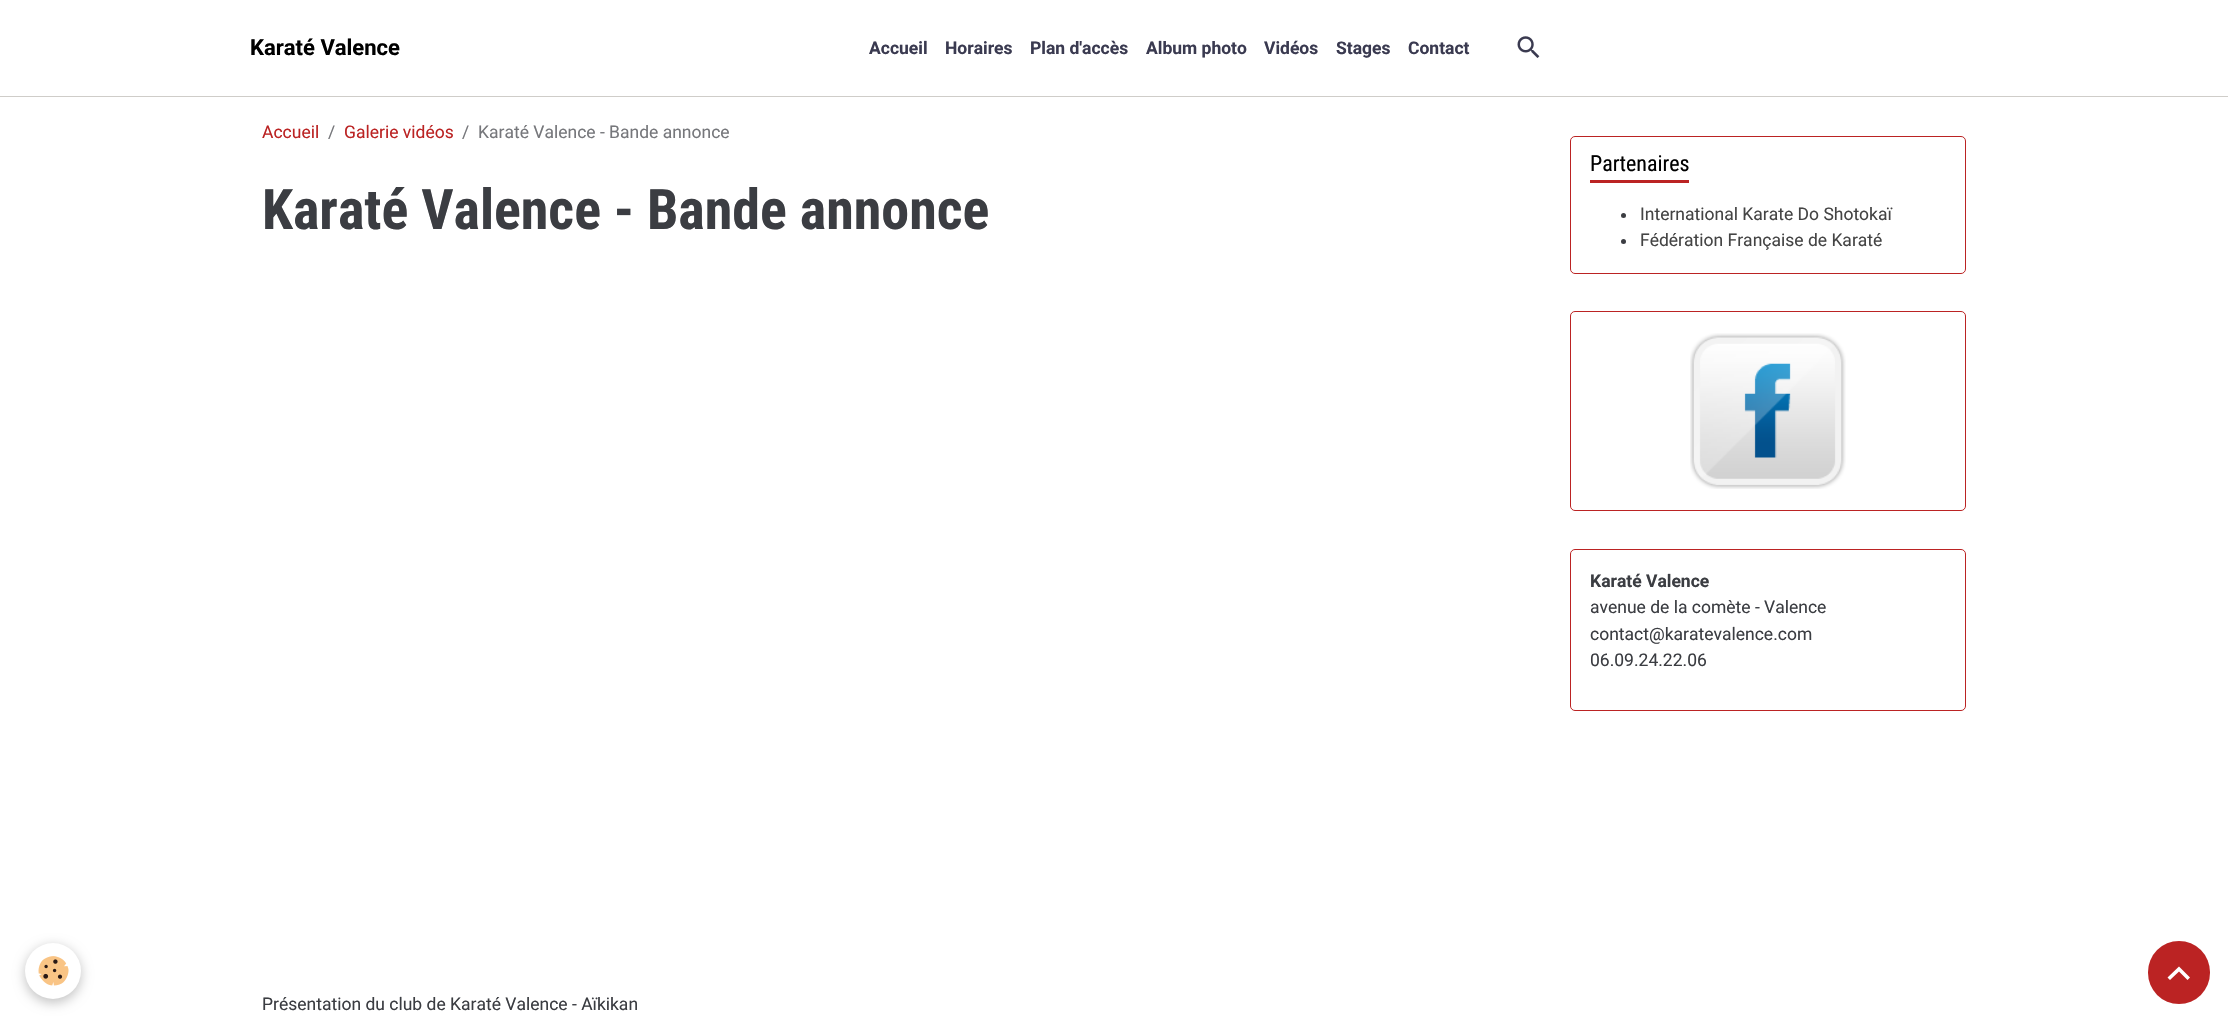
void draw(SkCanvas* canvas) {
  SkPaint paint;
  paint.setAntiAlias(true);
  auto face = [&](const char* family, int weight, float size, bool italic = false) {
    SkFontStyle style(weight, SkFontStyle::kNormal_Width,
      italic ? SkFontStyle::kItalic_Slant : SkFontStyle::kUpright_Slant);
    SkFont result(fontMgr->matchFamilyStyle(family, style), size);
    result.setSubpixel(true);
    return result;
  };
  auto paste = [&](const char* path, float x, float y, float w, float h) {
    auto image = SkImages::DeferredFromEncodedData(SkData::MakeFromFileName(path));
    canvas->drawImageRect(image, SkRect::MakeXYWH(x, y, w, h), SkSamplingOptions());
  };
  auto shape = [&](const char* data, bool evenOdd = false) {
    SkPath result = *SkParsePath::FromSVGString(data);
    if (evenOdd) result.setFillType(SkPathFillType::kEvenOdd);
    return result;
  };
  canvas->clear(0xffffffff);
  paint.setColor(0xffcfcdc9);
  canvas->drawRect(SkRect::MakeXYWH(0, 96, 2228, 1), paint);
  paste("img/1.png", 1517, 36, 23, 22);
  paint.setColor(0x3d000000);
  paint.setMaskFilter(SkMaskFilter::MakeBlur(kNormal_SkBlurStyle, 6));
  canvas->drawRoundRect(SkRect::MakeXYWH(25, 946, 56, 57), 28, 28, paint);
  paint.setMaskFilter(nullptr);
  paint.setColor(0xffffffff);
  canvas->drawCircle(53, 971, 28, paint);
  paste("img/2.png", 38, 956, 31, 30);
  paint.setStroke(true);
  paint.setStrokeWidth(1);
  paint.setColor(0xffbb2323);
  canvas->drawRoundRect(SkRect::MakeXYWH(1570.5f, 136.5f, 395, 137), 4.5f, 4.5f, paint);
  paint.setStroke(false);
  canvas->drawRect(SkRect::MakeXYWH(1590, 180, 99, 3), paint);
  paint.setColor(0xff3b3d42);
  canvas->drawCircle(1623.5f, 215.5f, 2.5f, paint);
  canvas->drawCircle(1623.5f, 241.5f, 2.5f, paint);
  paint.setStroke(true);
  paint.setColor(0xffbb2323);
  canvas->drawRoundRect(SkRect::MakeXYWH(1570.5f, 311.5f, 395, 199), 4.5f, 4.5f, paint);
  paste("img/3.png", 1690, 333, 156, 156);
  canvas->drawRoundRect(SkRect::MakeXYWH(1570.5f, 549.5f, 395, 161), 4.5f, 4.5f, paint);
  paint.setStroke(false);
  canvas->drawRoundRect(SkRect::MakeXYWH(2148, 941, 62, 63), 31, 31, paint);
  paint.setColor(0xffffffff);
  canvas->drawPath(shape("M2179 966.5L2190 977.5L2187.5 980L2179 971.5L2170 980L2167.5 977.5Z"), paint);
  auto f0 = face("Roboto", 700, 22);
  paint.setColor(0xff000000);
  canvas->drawString("Karaté Valence", 250, 55, f0, paint);
  auto f1 = face("Roboto", 700, 17.5f);
  paint.setColor(0xff3a3a50);
  {
    const struct { const char* s; float x, y; } items[] = {
      {"Accueil", 869, 54},
      {"Horaires", 945, 54},
      {"Plan d'accès", 1030, 54},
      {"Album photo", 1146, 54},
      {"Vidéos", 1264, 54},
      {"Stages", 1336, 54},
      {"Contact", 1408, 54},
    };
    for (auto [s, x, y] : items) {
      canvas->drawString(s, x, y, f1, paint);
    }
  }
  auto f2 = face("Roboto", 400, 17.5f);
  paint.setColor(0xffbb2323);
  canvas->drawString("Accueil", 262, 138, f2, paint);
  paint.setColor(0xff76777b);
  canvas->drawString("/", 328, 138, f2, paint);
  paint.setColor(0xffbb2323);
  canvas->drawString("Galerie vidéos", 344, 138, f2, paint);
  paint.setColor(0xff76777b);
  canvas->drawString("/", 462, 138, f2, paint);
  canvas->drawString("Karaté Valence - Bande annonce", 478, 138, f2, paint);
  auto f3 = face("Roboto Condensed", 700, 56);
  paint.setColor(0xff3b3d42);
  canvas->drawString("Karaté Valence - Bande annonce", 262, 229, f3, paint);
  canvas->drawString("Présentation du club de Karaté Valence - Aïkikan", 262, 1010, f2, paint);
  auto f4 = face("Roboto Condensed", 400, 22);
  paint.setColor(0xff000000);
  canvas->drawString("Partenaires", 1590, 171, f4, paint);
  paint.setColor(0xff444444);
  canvas->drawString("International Karate Do Shotokaï", 1640, 220, f2, paint);
  canvas->drawString("Fédération Française de Karaté", 1640, 246, f2, paint);
  paint.setColor(0xff3b3d42);
  canvas->drawString("Karaté Valence", 1590, 587, f1, paint);
  {
    const struct { const char* s; float x, y; } items[] = {
      {"avenue de la comète - Valence", 1590, 613},
      {"contact@karatevalence.com", 1590, 640},
      {"06.09.24.22.06", 1590, 666},
    };
    for (auto [s, x, y] : items) {
      canvas->drawString(s, x, y, f2, paint);
    }
  }
}
